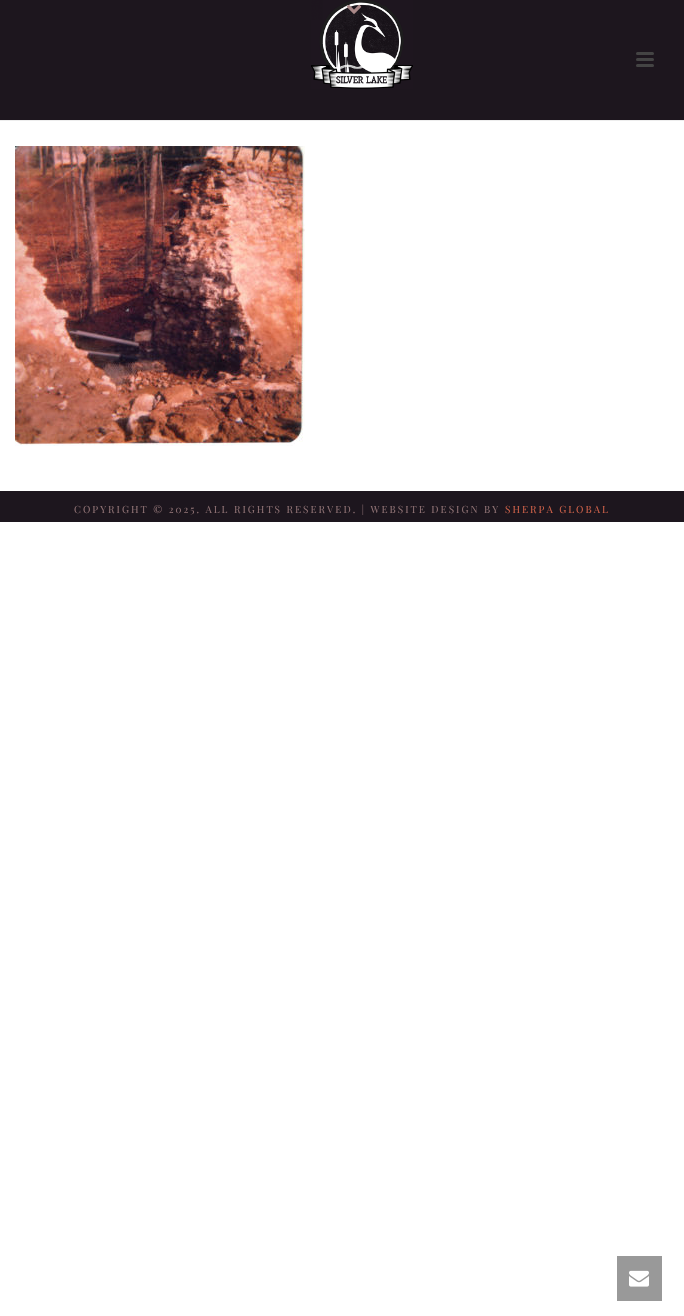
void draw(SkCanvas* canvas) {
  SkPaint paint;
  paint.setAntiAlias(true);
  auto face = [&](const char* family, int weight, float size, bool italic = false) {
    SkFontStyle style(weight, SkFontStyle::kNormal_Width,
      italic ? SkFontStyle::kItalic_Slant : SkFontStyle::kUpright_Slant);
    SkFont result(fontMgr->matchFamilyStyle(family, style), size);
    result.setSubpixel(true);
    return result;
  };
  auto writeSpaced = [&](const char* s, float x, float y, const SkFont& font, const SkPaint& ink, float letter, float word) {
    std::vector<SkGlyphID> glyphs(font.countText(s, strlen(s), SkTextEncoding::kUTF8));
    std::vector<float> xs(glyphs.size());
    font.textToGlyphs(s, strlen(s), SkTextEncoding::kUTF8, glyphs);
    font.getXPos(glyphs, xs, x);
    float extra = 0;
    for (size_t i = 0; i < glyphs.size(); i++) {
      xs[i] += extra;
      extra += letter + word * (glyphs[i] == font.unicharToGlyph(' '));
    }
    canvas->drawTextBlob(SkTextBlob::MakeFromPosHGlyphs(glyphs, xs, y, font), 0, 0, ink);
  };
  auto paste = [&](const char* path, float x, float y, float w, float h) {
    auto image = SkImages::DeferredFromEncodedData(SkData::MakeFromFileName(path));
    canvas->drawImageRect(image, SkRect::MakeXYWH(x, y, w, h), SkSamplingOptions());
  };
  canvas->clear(0xffffffff);
  paint.setColor(0xffededed);
  canvas->drawRect(SkRect::MakeXYWH(0, 120, 684, 1), paint);
  paint.setColor(0xff1d161e);
  canvas->drawRect(SkRect::MakeXYWH(0, 0, 684, 120), paint);
  paste("img/1.png", 311, 0, 102, 89);
  paint.setColor(0xff444444);
  canvas->drawRoundRect(SkRect::MakeXYWH(636, 52, 18, 3), 1.5f, 1.5f, paint);
  canvas->drawRoundRect(SkRect::MakeXYWH(636, 58, 18, 3), 1.5f, 1.5f, paint);
  canvas->drawRoundRect(SkRect::MakeXYWH(636, 64, 18, 3), 1.5f, 1.5f, paint);
  paste("img/2.png", 346, 4, 16, 10);
  paste("img/3.png", 15, 146, 290, 300);
  paint.setColor(0xff1d161e);
  canvas->drawRect(SkRect::MakeXYWH(0, 491, 684, 31), paint);
  paint.setColor(0xff999999);
  canvas->drawRect(SkRect::MakeXYWH(617, 1256, 45, 45), paint);
  paste("img/4.png", 629, 1270, 20, 17);
  auto f0 = face("Playfair Display", 400, 10);
  paint.setColor(0xff8e7173);
  writeSpaced("COPYRIGHT © 2025. ALL RIGHTS RESERVED. | WEBSITE DESIGN BY", 74, 513, f0, paint, 2, 0);
  paint.setColor(0xffcd6048);
  writeSpaced("SHERPA GLOBAL", 505, 513, f0, paint, 2, 0);
}
